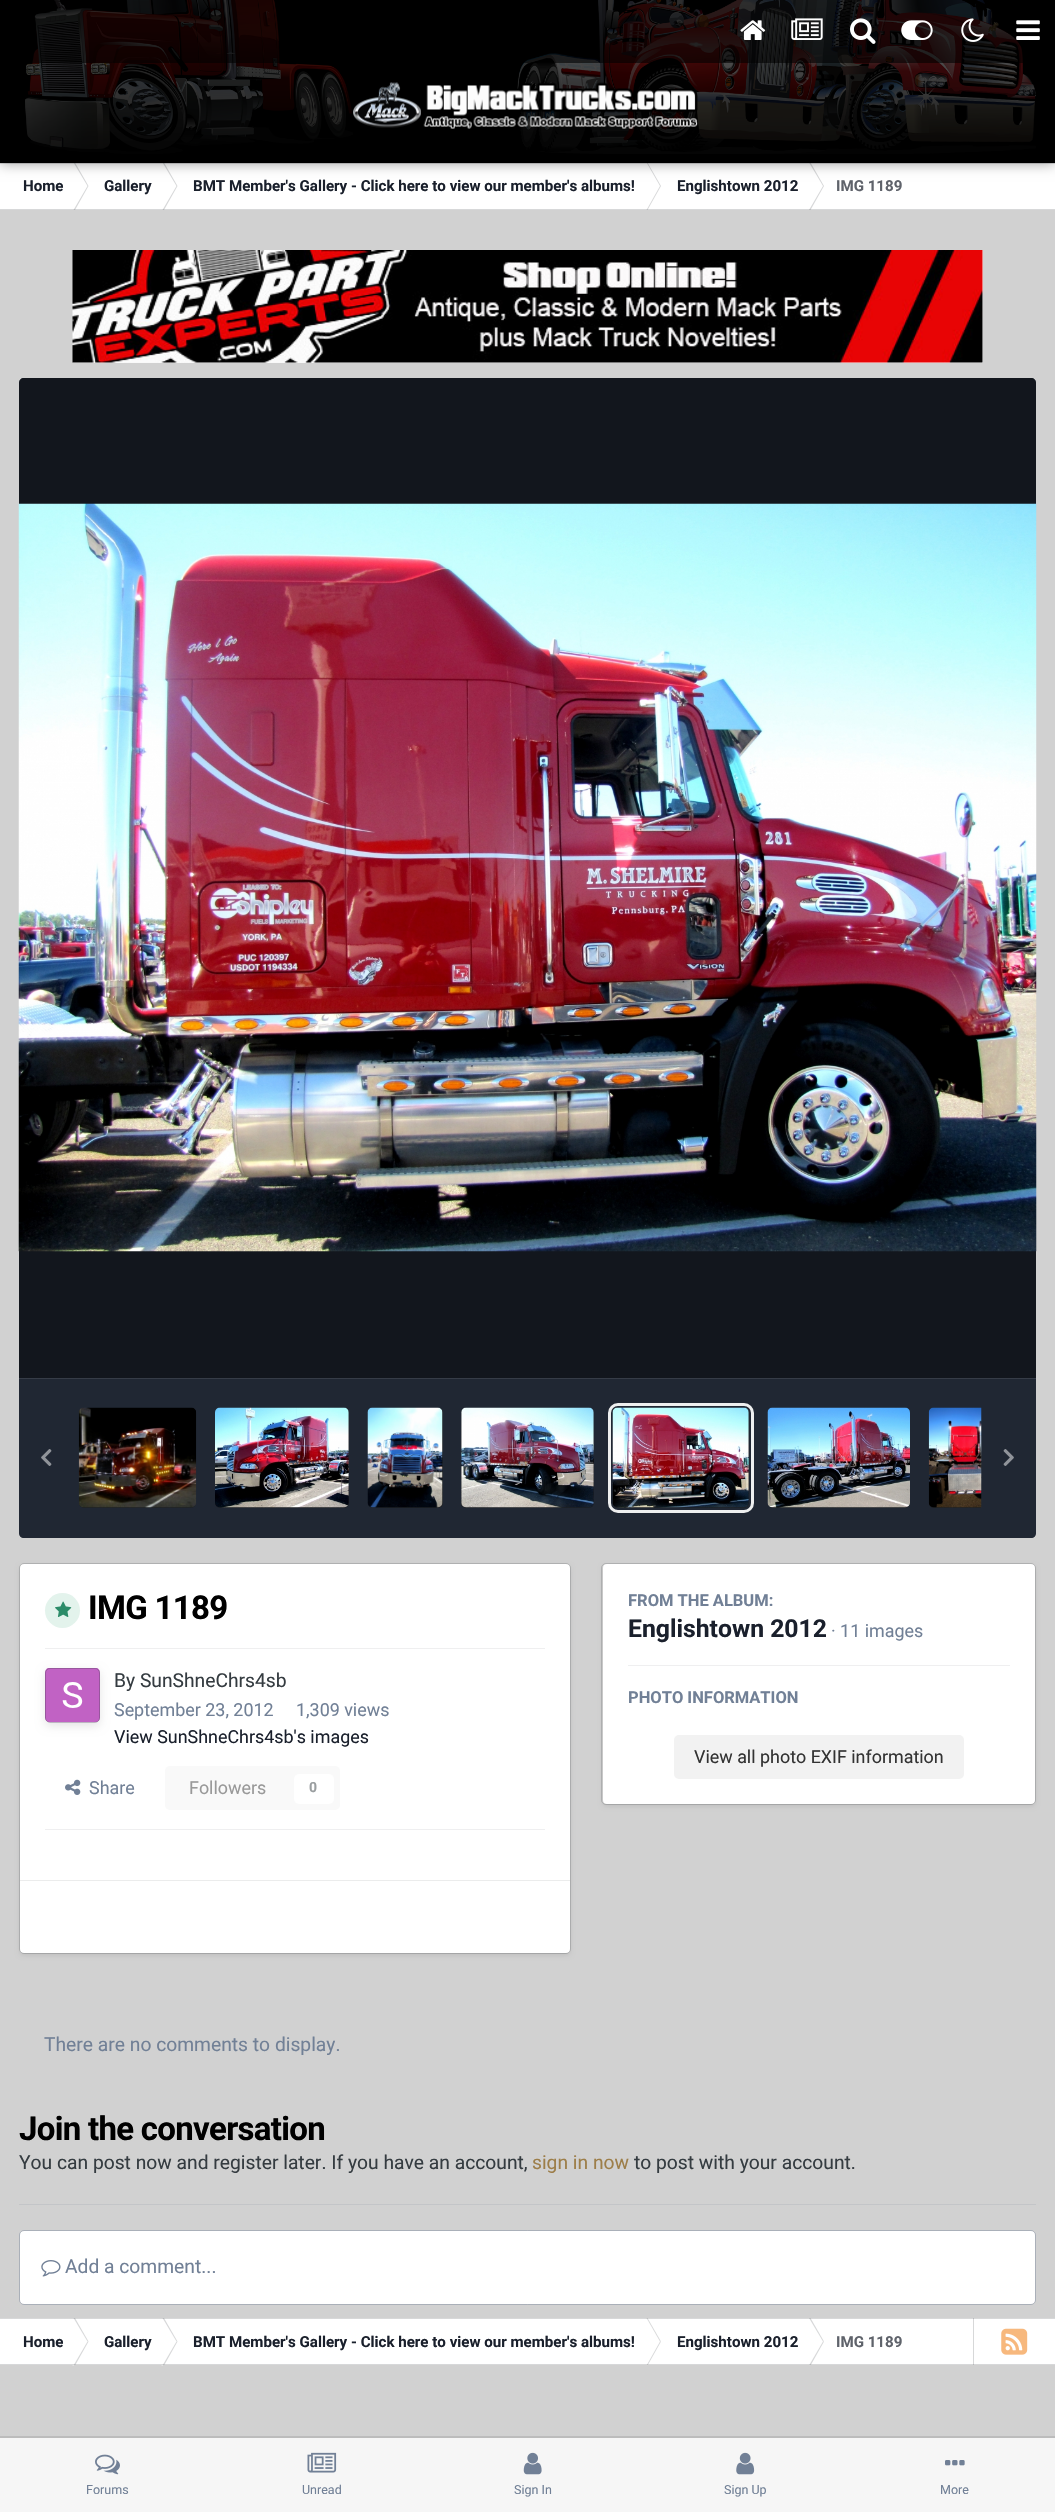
void draw(SkCanvas* canvas) {
  SkPaint paint;
  paint.setAntiAlias(true);
  auto face = [&](const char* family, int weight, float size, bool italic = false) {
    SkFontStyle style(weight, SkFontStyle::kNormal_Width,
      italic ? SkFontStyle::kItalic_Slant : SkFontStyle::kUpright_Slant);
    SkFont result(fontMgr->matchFamilyStyle(family, style), size);
    result.setSubpixel(true);
    return result;
  };
  auto writeSpaced = [&](const char* s, float x, float y, const SkFont& font, const SkPaint& ink, float letter, float word) {
    std::vector<SkGlyphID> glyphs(font.countText(s, strlen(s), SkTextEncoding::kUTF8));
    std::vector<float> xs(glyphs.size());
    font.textToGlyphs(s, strlen(s), SkTextEncoding::kUTF8, glyphs);
    font.getXPos(glyphs, xs, x);
    float extra = 0;
    for (size_t i = 0; i < glyphs.size(); i++) {
      xs[i] += extra;
      extra += letter + word * (glyphs[i] == font.unicharToGlyph(' '));
    }
    canvas->drawTextBlob(SkTextBlob::MakeFromPosHGlyphs(glyphs, xs, y, font), 0, 0, ink);
  };
  auto paste = [&](const char* path, float x, float y, float w, float h) {
    auto image = SkImages::DeferredFromEncodedData(SkData::MakeFromFileName(path));
    canvas->drawImageRect(image, SkRect::MakeXYWH(x, y, w, h), SkSamplingOptions());
  };
  auto shape = [&](const char* data, bool evenOdd = false) {
    SkPath result = *SkParsePath::FromSVGString(data);
    if (evenOdd) result.setFillType(SkPathFillType::kEvenOdd);
    return result;
  };
  canvas->clear(0xffd1d1d1);
  paint.setColor(0xffffffff);
  canvas->drawRect(SkRect::MakeXYWH(0, 163, 1055, 47), paint);
  paint.setColor(0xffd7d8d9);
  canvas->drawPath(shape("M73.5 162.5H75L88.5 186H87.5ZM73.5 210H75L88.5 186H87.5Z"), paint);
  canvas->drawPath(shape("M162.5 162.5H164L177.5 186H176.5ZM162.5 210H164L177.5 186H176.5Z"), paint);
  canvas->drawPath(shape("M646.5 162.5H647.5L661 186H660ZM646.5 210H647.5L661 186H660Z"), paint);
  canvas->drawPath(shape("M809 162.5H810.5L824 186H823ZM809 210H810.5L824 186H823Z"), paint);
  paint.setColor(0x33353c41);
  canvas->drawRect(SkRect::MakeXYWH(0, 163, 1055, 1), paint);
  paint.setColor(0x59000000);
  paint.setMaskFilter(SkMaskFilter::MakeBlur(kNormal_SkBlurStyle, 6));
  canvas->drawRect(SkRect::MakeXYWH(0, 1, 1055, 163), paint);
  paint.setMaskFilter(nullptr);
  paint.setColor(0xff000000);
  canvas->drawRect(SkRect::MakeXYWH(0, 0, 1055, 163), paint);
  paste("img/1.png", 25, 0, 1011, 154);
  paint.setColor(0x99000000);
  canvas->drawRect(SkRect::MakeXYWH(32, 0, 991, 63), paint);
  paste("img/2.png", 740, 20, 26, 20);
  paste("img/3.png", 791, 18, 32, 22);
  paste("img/4.png", 850, 18, 26, 26);
  paste("img/5.png", 901, 20, 32, 20);
  paste("img/6.png", 961, 18, 23, 24);
  paste("img/7.png", 1016, 20, 24, 20);
  paste("img/8.png", 353, 82, 345, 47);
  paint.setColor(0x33353c41);
  canvas->drawRect(SkRect::MakeXYWH(0, 209, 1055, 1), paint);
  paint.setColor(0xfff7f7f7);
  canvas->drawRect(SkRect::MakeXYWH(73, 250, 910, 113), paint);
  paste("img/9.png", 72, 250, 911, 113);
  paint.setColor(0xff2d3748);
  canvas->drawPath(shape("M24 378H1031C1034 378 1036 380 1036 383V1378H19V383C19 380 21 378 24 378Z"), paint);
  paint.setColor(0x99000000);
  canvas->drawPath(shape("M24 378H1031C1034 378 1036 380 1036 383V1378H19V383C19 380 21 378 24 378Z"), paint);
  paste("img/10.png", 18, 503, 1019, 749);
  paste("img/11.png", 999, 868, 18, 25);
  paint.setColor(0xff2d3748);
  canvas->drawPath(shape("M19 1378H1036V1533C1036 1536 1034 1538 1031 1538H24C21 1538 19 1536 19 1533Z"), paint);
  paint.setColor(0x4d000000);
  canvas->drawPath(shape("M19 1378H1036V1533C1036 1536 1034 1538 1031 1538H24C21 1538 19 1536 19 1533Z"), paint);
  paint.setColor(0xff363c47);
  canvas->drawRect(SkRect::MakeXYWH(19, 1378, 1017, 1), paint);
  paint.setColor(0xff141414);
  canvas->drawRoundRect(SkRect::MakeXYWH(79, 1408, 117, 100), 5, 5, paint);
  paint.setColor(0x4d2d3748);
  canvas->drawRoundRect(SkRect::MakeXYWH(79, 1408, 117, 100), 5, 5, paint);
  paste("img/12.png", 78, 1407, 119, 101);
  paint.setColor(0xff141414);
  canvas->drawRoundRect(SkRect::MakeXYWH(215, 1408, 134, 100), 5, 5, paint);
  paint.setColor(0x4d2d3748);
  canvas->drawRoundRect(SkRect::MakeXYWH(215, 1408, 134, 100), 5, 5, paint);
  paste("img/13.png", 215, 1407, 134, 101);
  paint.setColor(0xff141414);
  canvas->drawRoundRect(SkRect::MakeXYWH(368, 1408, 75, 100), 5, 5, paint);
  paint.setColor(0x4d2d3748);
  canvas->drawRoundRect(SkRect::MakeXYWH(368, 1408, 75, 100), 5, 5, paint);
  paste("img/14.png", 367, 1407, 76, 101);
  paint.setColor(0xff141414);
  canvas->drawRoundRect(SkRect::MakeXYWH(461, 1408, 133, 100), 5, 5, paint);
  paint.setColor(0x4d2d3748);
  canvas->drawRoundRect(SkRect::MakeXYWH(461, 1408, 133, 100), 5, 5, paint);
  paste("img/15.png", 461, 1407, 133, 101);
  paint.setColor(0xff141414);
  canvas->drawRoundRect(SkRect::MakeXYWH(613, 1408, 136, 100), 5, 5, paint);
  paint.setColor(0x4d2d3748);
  canvas->drawRoundRect(SkRect::MakeXYWH(613, 1408, 136, 100), 5, 5, paint);
  paint.setStroke(true);
  paint.setStrokeWidth(3);
  paint.setColor(0xffeeefef);
  canvas->drawRoundRect(SkRect::MakeXYWH(609.5f, 1404.5f, 143, 107), 8.5f, 8.5f, paint);
  paste("img/16.png", 612, 1407, 137, 101);
  paint.setStroke(false);
  paint.setColor(0xff141414);
  canvas->drawRoundRect(SkRect::MakeXYWH(768, 1408, 142, 100), 5, 5, paint);
  paint.setColor(0x4d2d3748);
  canvas->drawRoundRect(SkRect::MakeXYWH(768, 1408, 142, 100), 5, 5, paint);
  paste("img/17.png", 767, 1407, 143, 101);
  paint.setColor(0xff141414);
  canvas->drawPath(shape("M934 1408H981V1508H934C931 1508 929 1506 929 1503V1413C929 1410 931 1408 934 1408Z"), paint);
  paint.setColor(0x4d2d3748);
  canvas->drawPath(shape("M934 1408H981V1508H934C931 1508 929 1506 929 1503V1413C929 1410 931 1408 934 1408Z"), paint);
  paste("img/18.png", 928, 1407, 54, 101);
  paste("img/19.png", 41, 1449, 11, 17);
  paste("img/20.png", 1003, 1449, 11, 17);
  paint.setColor(0x1a000000);
  paint.setMaskFilter(SkMaskFilter::MakeBlur(kNormal_SkBlurStyle, 2.5f));
  canvas->drawRoundRect(SkRect::MakeXYWH(20, 1566, 550, 389), 4, 4, paint);
  paint.setMaskFilter(nullptr);
  paint.setColor(0xffffffff);
  canvas->drawRoundRect(SkRect::MakeXYWH(20, 1564, 550, 389), 4, 4, paint);
  paint.setStroke(true);
  paint.setStrokeWidth(1);
  paint.setColor(0x33353c41);
  canvas->drawRoundRect(SkRect::MakeXYWH(19.5f, 1563.5f, 551, 390), 4.5f, 4.5f, paint);
  paint.setStroke(false);
  paint.setColor(0xffe3f3ec);
  canvas->drawCircle(62.5f, 1610.5f, 17.5f, paint);
  paste("img/21.png", 55, 1601, 17, 16);
  paint.setColor(0xffefeff0);
  canvas->drawRect(SkRect::MakeXYWH(45, 1648, 500, 1), paint);
  paste("img/22.png", 45, 1668, 55, 55);
  canvas->save();
  canvas->clipPath(shape("M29 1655H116V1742H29ZM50 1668H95C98 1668 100 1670 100 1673V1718C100 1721 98 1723 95 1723H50C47 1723 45 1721 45 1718V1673C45 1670 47 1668 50 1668Z", true), true);
  paint.setColor(0x1a000000);
  paint.setMaskFilter(SkMaskFilter::MakeBlur(kNormal_SkBlurStyle, 5));
  canvas->drawRoundRect(SkRect::MakeXYWH(45, 1671, 55, 55), 5, 5, paint);
  paint.setMaskFilter(nullptr);
  canvas->restore();
  paint.setStroke(true);
  paint.setColor(0x4d353c41);
  canvas->drawRoundRect(SkRect::MakeXYWH(45.5f, 1668.5f, 54, 54), 4.5f, 4.5f, paint);
  paste("img/23.png", 65, 1779, 16, 16);
  paint.setStroke(false);
  paint.setColor(0xfff9f9f9);
  canvas->drawRoundRect(SkRect::MakeXYWH(165, 1766, 175, 44), 5, 5, paint);
  paint.setColor(0xffffffff);
  canvas->drawRoundRect(SkRect::MakeXYWH(294, 1774, 40, 30), 5, 5, paint);
  paint.setColor(0xffefeff0);
  canvas->drawRect(SkRect::MakeXYWH(45, 1829, 500, 1), paint);
  paint.setColor(0xffebecec);
  canvas->drawRect(SkRect::MakeXYWH(20, 1880, 550, 1), paint);
  paint.setColor(0x1a000000);
  paint.setMaskFilter(SkMaskFilter::MakeBlur(kNormal_SkBlurStyle, 2.5f));
  canvas->drawRoundRect(SkRect::MakeXYWH(603, 1566, 432, 240), 4, 4, paint);
  paint.setMaskFilter(nullptr);
  paint.setColor(0xffffffff);
  canvas->drawRoundRect(SkRect::MakeXYWH(603, 1564, 432, 240), 4, 4, paint);
  paint.setStroke(true);
  paint.setColor(0x33353c41);
  canvas->drawRoundRect(SkRect::MakeXYWH(601.5f, 1563.5f, 434, 241), 4.5f, 4.5f, paint);
  paint.setStroke(false);
  paint.setColor(0xffefeff0);
  canvas->drawRect(SkRect::MakeXYWH(628, 1665, 382, 1), paint);
  paint.setColor(0xfff2f2f2);
  canvas->drawRoundRect(SkRect::MakeXYWH(674, 1735, 290, 44), 5, 5, paint);
  paint.setColor(0xffc3c5c8);
  canvas->drawRect(SkRect::MakeXYWH(19, 2204, 1017, 1), paint);
  paint.setColor(0xffffffff);
  canvas->drawRoundRect(SkRect::MakeXYWH(20, 2231, 1015, 73), 4, 4, paint);
  paint.setStroke(true);
  paint.setColor(0x66718096);
  canvas->drawRoundRect(SkRect::MakeXYWH(19.5f, 2230.5f, 1016, 74), 4.5f, 4.5f, paint);
  paste("img/24.png", 41, 2260, 20, 17);
  paint.setStroke(false);
  paint.setColor(0xffffffff);
  canvas->drawRect(SkRect::MakeXYWH(0, 2318, 1055, 47), paint);
  paint.setColor(0xffd7d8d9);
  canvas->drawPath(shape("M73.5 2318H75L88.5 2341.5H87.5Z"), paint);
  canvas->drawPath(shape("M162.5 2318H164L177.5 2341.5H176.5Z"), paint);
  canvas->drawPath(shape("M646.5 2318H647.5L661 2341.5H660Z"), paint);
  canvas->drawPath(shape("M809 2318H810.5L824 2341.5H823Z"), paint);
  canvas->drawRect(SkRect::MakeXYWH(973, 2318, 1, 47), paint);
  paint.setColor(0x33353c41);
  canvas->drawRect(SkRect::MakeXYWH(0, 2318, 1055, 1), paint);
  paint.setColor(0xffffffff);
  canvas->drawPath(shape("M72.5 2365.5H73.5L87.5 2341.5H86Z"), paint);
  canvas->save();
  canvas->clipRect(SkRect::MakeXYWH(0, 2318, 973, 47));
  paint.setColor(0xffd7d8d9);
  canvas->drawPath(shape("M73.5 2365.5H75L88.5 2341.5H87.5Z"), paint);
  canvas->restore();
  paint.setColor(0xffffffff);
  canvas->drawPath(shape("M161.5 2365.5H162.5L176.5 2341.5H175Z"), paint);
  canvas->save();
  canvas->clipRect(SkRect::MakeXYWH(0, 2318, 973, 47));
  paint.setColor(0xffd7d8d9);
  canvas->drawPath(shape("M162.5 2365.5H164L177.5 2341.5H176.5Z"), paint);
  canvas->restore();
  canvas->drawPath(shape("M646.5 2365.5H647.5L661 2341.5H660Z"), paint);
  canvas->drawPath(shape("M809 2365.5H810.5L824 2341.5H823Z"), paint);
  paint.setColor(0x33353c41);
  canvas->drawRect(SkRect::MakeXYWH(0, 2364, 1055, 1), paint);
  paste("img/25.png", 1001, 2328, 27, 27);
  paint.setColor(0xffbcbcbc);
  canvas->drawRect(SkRect::MakeXYWH(0, 2436, 1055, 2), paint);
  paint.setColor(0xfff6f6f6);
  canvas->drawRect(SkRect::MakeXYWH(0, 2438, 1055, 74), paint);
  paste("img/26.png", 95, 2454, 25, 21);
  paste("img/27.png", 307, 2452, 30, 21);
  paste("img/28.png", 523, 2452, 19, 23);
  paste("img/29.png", 736, 2452, 19, 23);
  paste("img/30.png", 945, 2460, 20, 6);
  auto f0 = face("Roboto", 700, 15.1f);
  paint.setColor(0xff1a202c);
  {
    const struct { const char* s; float x, y; } items[] = {
      {"Home", 23, 191},
      {"Gallery", 104, 191},
      {"BMT Member's Gallery - Click here to view our member's albums!", 193, 191},
      {"Englishtown 2012", 677, 191},
    };
    for (auto [s, x, y] : items) {
      canvas->drawString(s, x, y, f0, paint);
    }
  }
  paint.setColor(0xff5f636b);
  canvas->drawString("IMG 1189", 836, 191, f0, paint);
  auto f1 = face("Roboto", 700, 33);
  paint.setColor(0xff000000);
  writeSpaced("IMG 1189", 88, 1619, f1, paint, -0.7f, 0);
  auto f2 = face("Roboto", 400, 19.25f);
  paint.setColor(0xff353c41);
  canvas->drawString("By SunShneChrs4sb", 114, 1687, f2, paint);
  auto f3 = face("Roboto", 400, 17.9f);
  paint.setColor(0xff718096);
  canvas->drawString("September 23, 2012", 114, 1716, f3, paint);
  canvas->drawString("1,309 views", 296, 1716, f3, paint);
  paint.setColor(0xff1a202c);
  canvas->drawString("View SunShneChrs4sb's images", 114, 1743, f3, paint);
  paint.setColor(0xff718096);
  canvas->drawString("Share", 89, 1794, f3, paint);
  paint.setColor(0xff999999);
  canvas->drawString("Followers", 189, 1794, f3, paint);
  auto f4 = face("Roboto", 700, 14);
  paint.setColor(0xff9a9ea0);
  canvas->drawString("0", 309, 1792, f4, paint);
  auto f5 = face("Roboto", 700, 16.5f);
  paint.setColor(0xff718096);
  canvas->drawString("FROM THE ALBUM:", 628, 1606, f5, paint);
  auto f6 = face("Roboto", 700, 24.75f);
  paint.setColor(0xff1a202c);
  canvas->drawString("Englishtown 2012", 628, 1637, f6, paint);
  paint.setColor(0xff718096);
  canvas->drawString("· 11 images", 831, 1637, f3, paint);
  canvas->drawString("PHOTO INFORMATION", 628, 1703, f5, paint);
  paint.setColor(0xff333333);
  canvas->drawString("View all photo EXIF information", 694, 1763, f3, paint);
  paint.setColor(0xff718096);
  canvas->drawString("There are no comments to display.", 44, 2051, f2, paint);
  paint.setColor(0xff000000);
  writeSpaced("Join the conversation", 19, 2140, f1, paint, -0.7f, 0);
  paint.setColor(0xff353c41);
  canvas->drawString("You can post now and register later. If you have an account,", 19, 2169, f2, paint);
  paint.setColor(0xff9d7e49);
  canvas->drawString("sign in now", 532, 2169, f2, paint);
  paint.setColor(0xff353c41);
  canvas->drawString("to post with your account.", 634, 2169, f2, paint);
  paint.setColor(0xff718096);
  canvas->drawString("Add a comment...", 65, 2273, f2, paint);
  paint.setColor(0xff1a202c);
  {
    const struct { const char* s; float x, y; } items[] = {
      {"Home", 23, 2347},
      {"Gallery", 104, 2347},
      {"BMT Member's Gallery - Click here to view our member's albums!", 193, 2347},
      {"Englishtown 2012", 677, 2347},
    };
    for (auto [s, x, y] : items) {
      canvas->drawString(s, x, y, f0, paint);
    }
  }
  paint.setColor(0xff5f636b);
  canvas->drawString("IMG 1189", 836, 2347, f0, paint);
  auto f7 = face("Roboto", 400, 12.5f);
  paint.setColor(0xff718096);
  {
    const struct { const char* s; float x, y; } items[] = {
      {"Forums", 86, 2494},
      {"Unread", 302, 2494},
      {"Sign In", 514, 2494},
      {"Sign Up", 724, 2494},
      {"More", 940, 2494},
    };
    for (auto [s, x, y] : items) {
      canvas->drawString(s, x, y, f7, paint);
    }
  }
}
